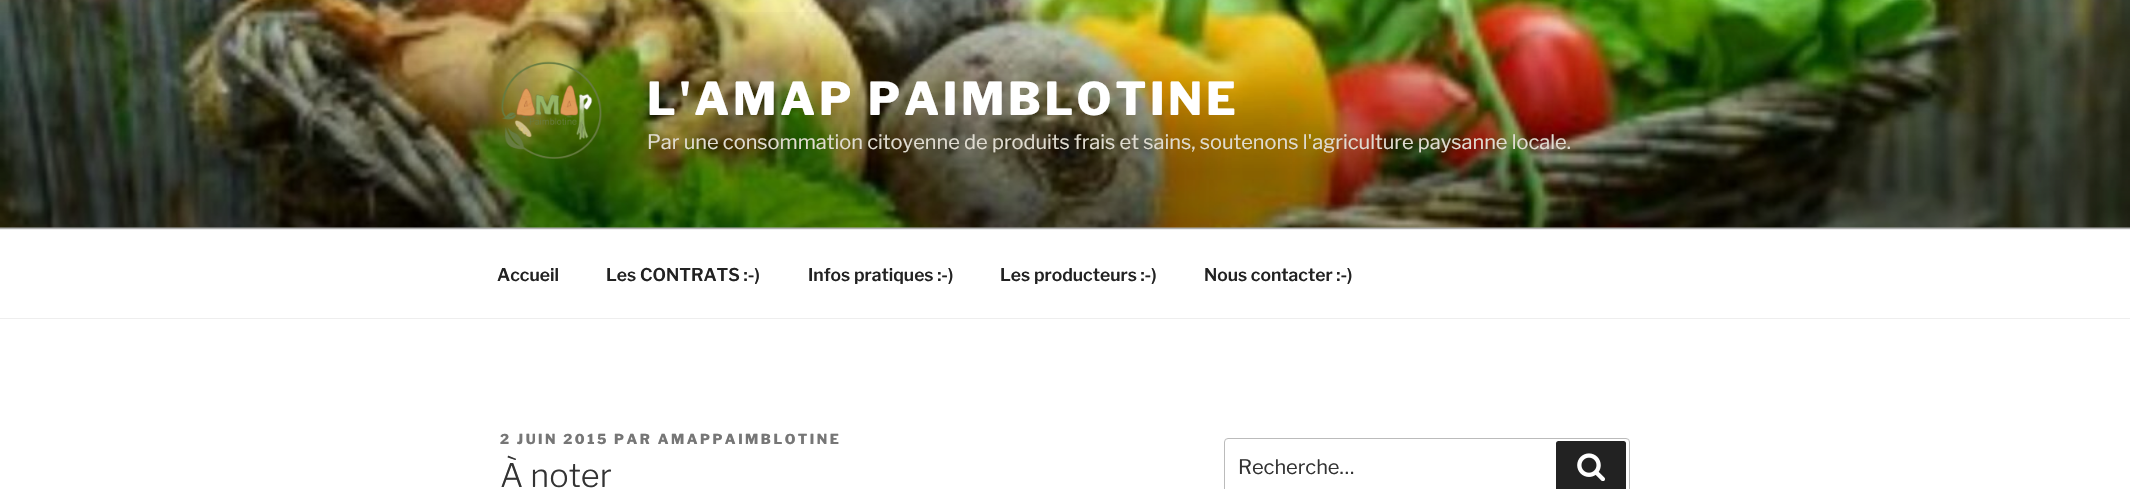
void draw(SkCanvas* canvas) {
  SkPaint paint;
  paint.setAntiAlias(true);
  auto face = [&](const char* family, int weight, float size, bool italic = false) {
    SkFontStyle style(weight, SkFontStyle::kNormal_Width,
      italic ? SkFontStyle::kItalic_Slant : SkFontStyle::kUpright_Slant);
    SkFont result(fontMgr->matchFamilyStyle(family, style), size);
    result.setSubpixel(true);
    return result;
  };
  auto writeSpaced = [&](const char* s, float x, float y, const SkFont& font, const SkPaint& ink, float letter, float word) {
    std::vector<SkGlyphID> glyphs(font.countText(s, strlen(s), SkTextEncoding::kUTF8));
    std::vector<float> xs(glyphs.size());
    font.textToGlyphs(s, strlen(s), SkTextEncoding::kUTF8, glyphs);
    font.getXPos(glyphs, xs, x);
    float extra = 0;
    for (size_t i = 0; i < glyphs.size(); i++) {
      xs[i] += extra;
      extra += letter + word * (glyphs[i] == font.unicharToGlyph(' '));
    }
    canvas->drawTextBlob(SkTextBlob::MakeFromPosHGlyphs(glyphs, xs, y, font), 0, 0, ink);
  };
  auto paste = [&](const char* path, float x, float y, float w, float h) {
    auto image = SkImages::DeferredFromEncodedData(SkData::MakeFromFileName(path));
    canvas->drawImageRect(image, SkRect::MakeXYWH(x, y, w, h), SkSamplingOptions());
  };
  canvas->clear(0xffffffff);
  paint.setColor(0xfffafafa);
  canvas->drawRect(SkRect::MakeXYWH(0, 227, 2130, 2), paint);
  paste("img/1.png", 0, 0, 2130, 228);
  {
    const SkColor colors[] = {0x00000000, 0x4d000000, 0x4d000000};
    const float stops[] = {0, 0.75f, 1};
    const SkPoint ends[] = {{1065, 0}, {1065, 229}};
    paint.setShader(SkGradientShader::MakeLinear(ends, colors, stops, 3, SkTileMode::kClamp));
    paint.setAlpha(255);
  }
  canvas->drawRect(SkRect::MakeXYWH(0, 12, 2130, 217), paint);
  paste("img/2.png", 501, 61, 101, 98);
  paint.setShader(nullptr);
  paint.setColor(0xffeeeeee);
  canvas->drawRect(SkRect::MakeXYWH(0, 229, 2130, 1), paint);
  canvas->drawRect(SkRect::MakeXYWH(0, 318, 2130, 1), paint);
  paint.setStroke(true);
  paint.setStrokeWidth(1);
  paint.setColor(0xffbbbbbb);
  canvas->drawRoundRect(SkRect::MakeXYWH(1224.5f, 438.5f, 405, 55), 3.5f, 3.5f, paint);
  paint.setStroke(false);
  paint.setColor(0xff222222);
  canvas->drawRoundRect(SkRect::MakeXYWH(1556, 441, 70, 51), 2.5f, 2.5f, paint);
  paste("img/3.png", 1577, 453, 28, 28);
  auto f0 = face("Libre Franklin", 100, 45);
  paint.setColor(0xffffffff);
  writeSpaced("L'AMAP PAIMBLOTINE", 647, 115, f0, paint, 3.6f, 0);
  auto f1 = face("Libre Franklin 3", 100, 20);
  paint.setColor(0xffe0dcd1);
  canvas->drawString("Par une consommation citoyenne de produits frais et sains, soutenons l'agriculture paysanne locale.", 647, 149, f1, paint);
  auto f2 = face("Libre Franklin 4", 100, 17.5f);
  paint.setColor(0xff222222);
  {
    const struct { const char* s; float x, y; } items[] = {
      {"Accueil", 497, 281},
      {"Les CONTRATS :-)", 606, 281},
      {"Infos pratiques :-)", 808, 281},
      {"Les producteurs :-)", 1000, 281},
      {"Nous contacter :-)", 1204, 281},
    };
    for (auto [s, x, y] : items) {
      canvas->drawString(s, x, y, f2, paint);
    }
  }
  auto f3 = face("Libre Franklin", 100, 13.75f);
  paint.setColor(0xff767676);
  writeSpaced("2 JUIN 2015 PAR AMAPPAIMBLOTINE", 500, 444, f3, paint, 2.5f, 0);
  auto f4 = face("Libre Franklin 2", 100, 32.5f);
  paint.setColor(0xff333333);
  canvas->drawString("À noter", 500, 487, f4, paint);
  canvas->drawString("Recherche…", 1238, 474, f1, paint);
}
